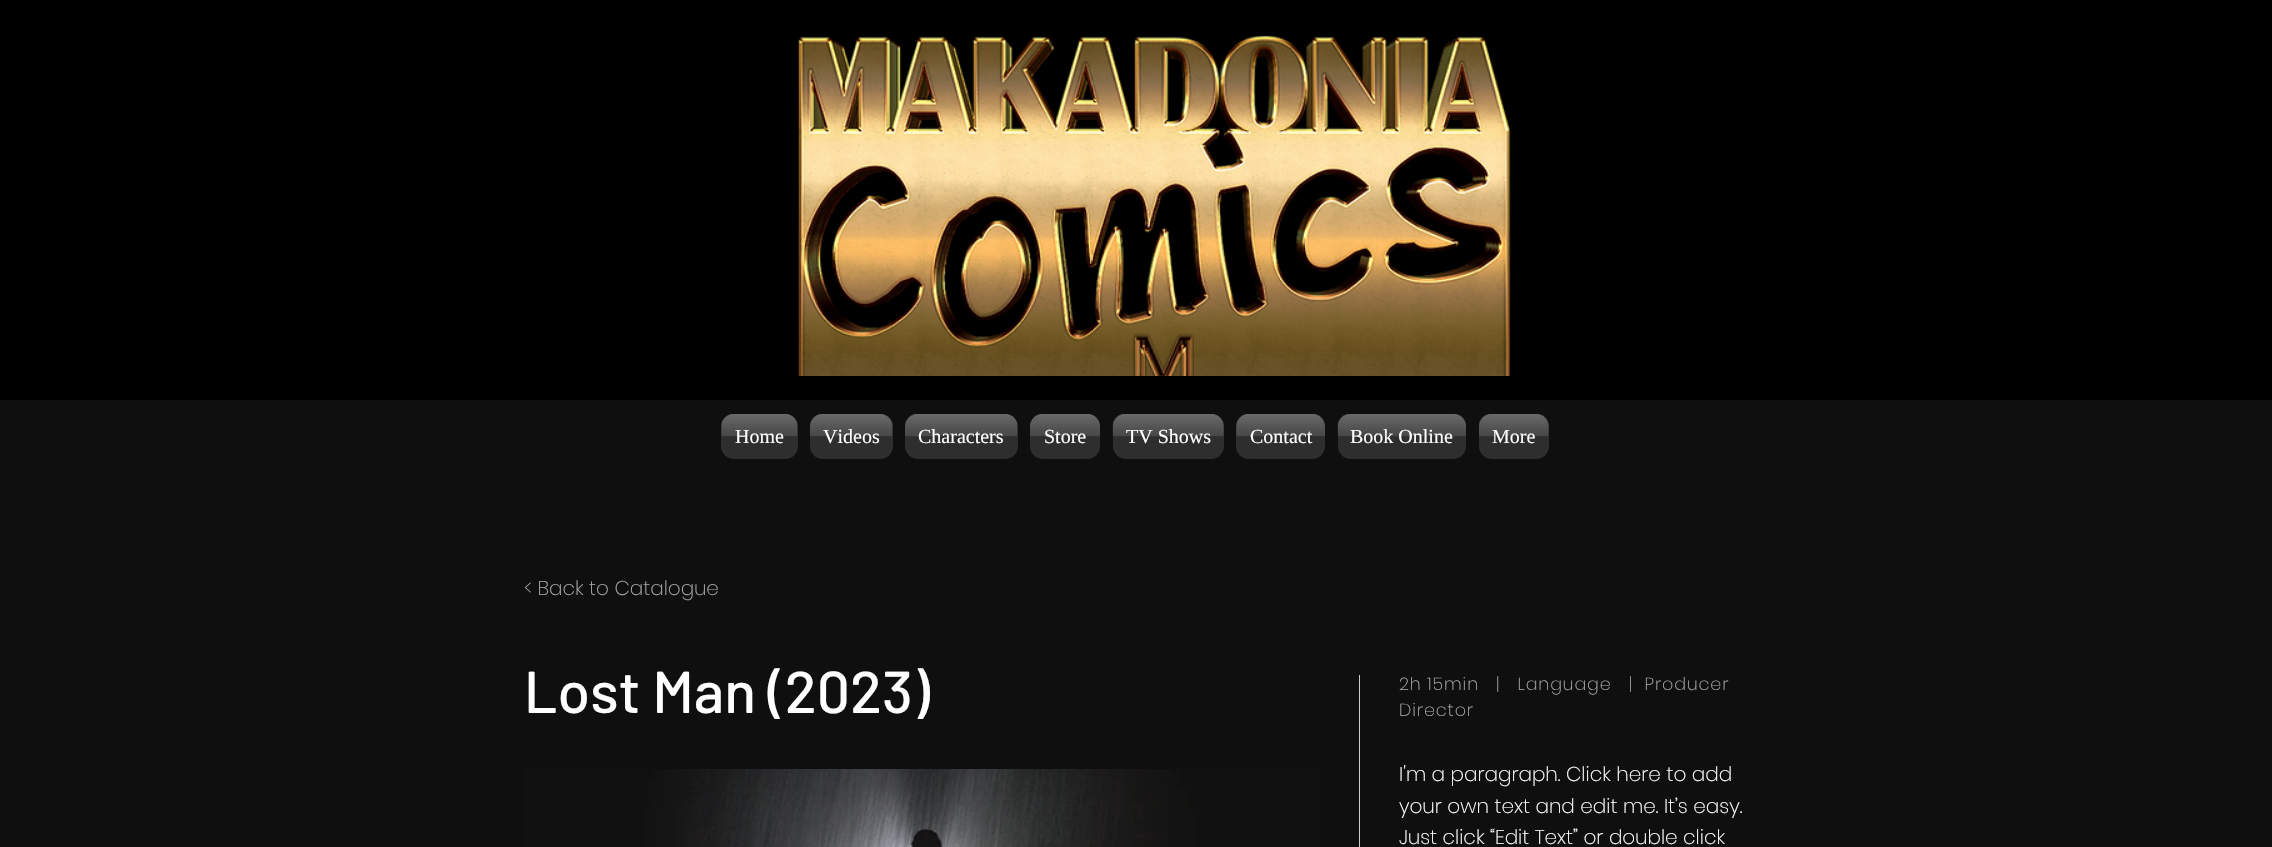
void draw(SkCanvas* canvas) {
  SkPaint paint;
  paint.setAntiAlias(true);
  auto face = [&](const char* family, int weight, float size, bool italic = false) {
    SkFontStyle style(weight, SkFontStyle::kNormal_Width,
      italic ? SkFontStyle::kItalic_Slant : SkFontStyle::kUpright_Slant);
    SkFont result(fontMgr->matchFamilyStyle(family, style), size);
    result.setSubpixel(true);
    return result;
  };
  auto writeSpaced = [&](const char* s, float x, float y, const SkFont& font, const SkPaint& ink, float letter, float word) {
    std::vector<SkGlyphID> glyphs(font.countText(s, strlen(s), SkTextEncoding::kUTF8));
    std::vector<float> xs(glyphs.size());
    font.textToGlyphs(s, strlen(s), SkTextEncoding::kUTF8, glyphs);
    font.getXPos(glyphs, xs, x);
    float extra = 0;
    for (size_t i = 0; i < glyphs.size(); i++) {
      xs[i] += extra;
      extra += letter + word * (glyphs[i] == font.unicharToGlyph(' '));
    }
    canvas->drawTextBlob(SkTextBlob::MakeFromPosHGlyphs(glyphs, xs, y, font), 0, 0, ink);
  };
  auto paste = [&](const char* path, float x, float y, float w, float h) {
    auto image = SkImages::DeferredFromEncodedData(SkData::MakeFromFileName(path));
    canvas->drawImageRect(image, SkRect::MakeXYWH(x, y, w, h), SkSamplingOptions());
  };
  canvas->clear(0xff0f0f0f);
  paint.setColor(0xff000000);
  canvas->drawRect(SkRect::MakeXYWH(0, 0, 2272, 400), paint);
  paste("img/1.png", 798, 35, 713, 341);
  paint.setColor(0xff2f2e2e);
  canvas->drawRoundRect(SkRect::MakeXYWH(721, 414, 77, 45), 13, 13, paint);
  paste("img/2.png", 721, 414, 77, 23);
  canvas->drawRoundRect(SkRect::MakeXYWH(810, 414, 83, 45), 13, 13, paint);
  paste("img/3.png", 810, 414, 83, 23);
  canvas->drawRoundRect(SkRect::MakeXYWH(905, 414, 113, 45), 13, 13, paint);
  paste("img/4.png", 905, 414, 113, 23);
  canvas->drawRoundRect(SkRect::MakeXYWH(1030, 414, 70, 45), 13, 13, paint);
  paste("img/5.png", 1030, 414, 70, 23);
  canvas->drawRoundRect(SkRect::MakeXYWH(1113, 414, 111, 45), 13, 13, paint);
  paste("img/6.png", 1112, 414, 112, 23);
  canvas->drawRoundRect(SkRect::MakeXYWH(1236, 414, 89, 45), 13, 13, paint);
  paste("img/7.png", 1236, 414, 89, 23);
  canvas->drawRoundRect(SkRect::MakeXYWH(1338, 414, 128, 45), 13, 13, paint);
  paste("img/8.png", 1337, 414, 129, 23);
  canvas->drawRoundRect(SkRect::MakeXYWH(1479, 414, 70, 45), 13, 13, paint);
  paste("img/9.png", 1479, 414, 70, 23);
  paint.setColor(0xffcccaca);
  canvas->drawRect(SkRect::MakeXYWH(1359, 675, 1, 172), paint);
  paste("img/10.png", 524, 769, 796, 78);
  auto f0 = face("Liberation Serif", 400, 20);
  paint.setColor(0xffffffff);
  {
    const struct { const char* s; float x, y; } items[] = {
      {"Home", 735, 443},
      {"Videos", 823, 443},
      {"Characters", 918, 443},
      {"Store", 1044, 443},
      {"TV Shows", 1126, 443},
      {"Contact", 1250, 443},
      {"Book Online", 1350, 443},
      {"More", 1492, 443},
    };
    for (auto [s, x, y] : items) {
      canvas->drawString(s, x, y, f0, paint);
    }
  }
  auto f1 = face("Poppins", 200, 20);
  paint.setColor(0xffa8a8a8);
  canvas->drawString("< Back to Catalogue", 524, 595, f1, paint);
  auto f2 = face("Barlow", 500, 58.75f);
  paint.setColor(0xffffffff);
  canvas->drawString("Lost Man (2023)", 524, 713, f2, paint);
  auto f3 = face("Poppins", 200, 17.5f);
  paint.setColor(0xffa8a8a8);
  writeSpaced("2h 15min   |   Language   |  Producer", 1399, 690, f3, paint, 0.9f, 0);
  writeSpaced("Director", 1399, 716, f3, paint, 0.9f, 0);
  paint.setColor(0xffffffff);
  {
    const struct { const char* s; float x, y; } items[] = {
      {"I'm a paragraph. Click here to add", 1399, 781},
      {"your own text and edit me. It’s easy.", 1399, 813},
      {"Just click “Edit Text” or double click", 1399, 844},
    };
    for (auto [s, x, y] : items) {
      canvas->drawString(s, x, y, f1, paint);
    }
  }
}
